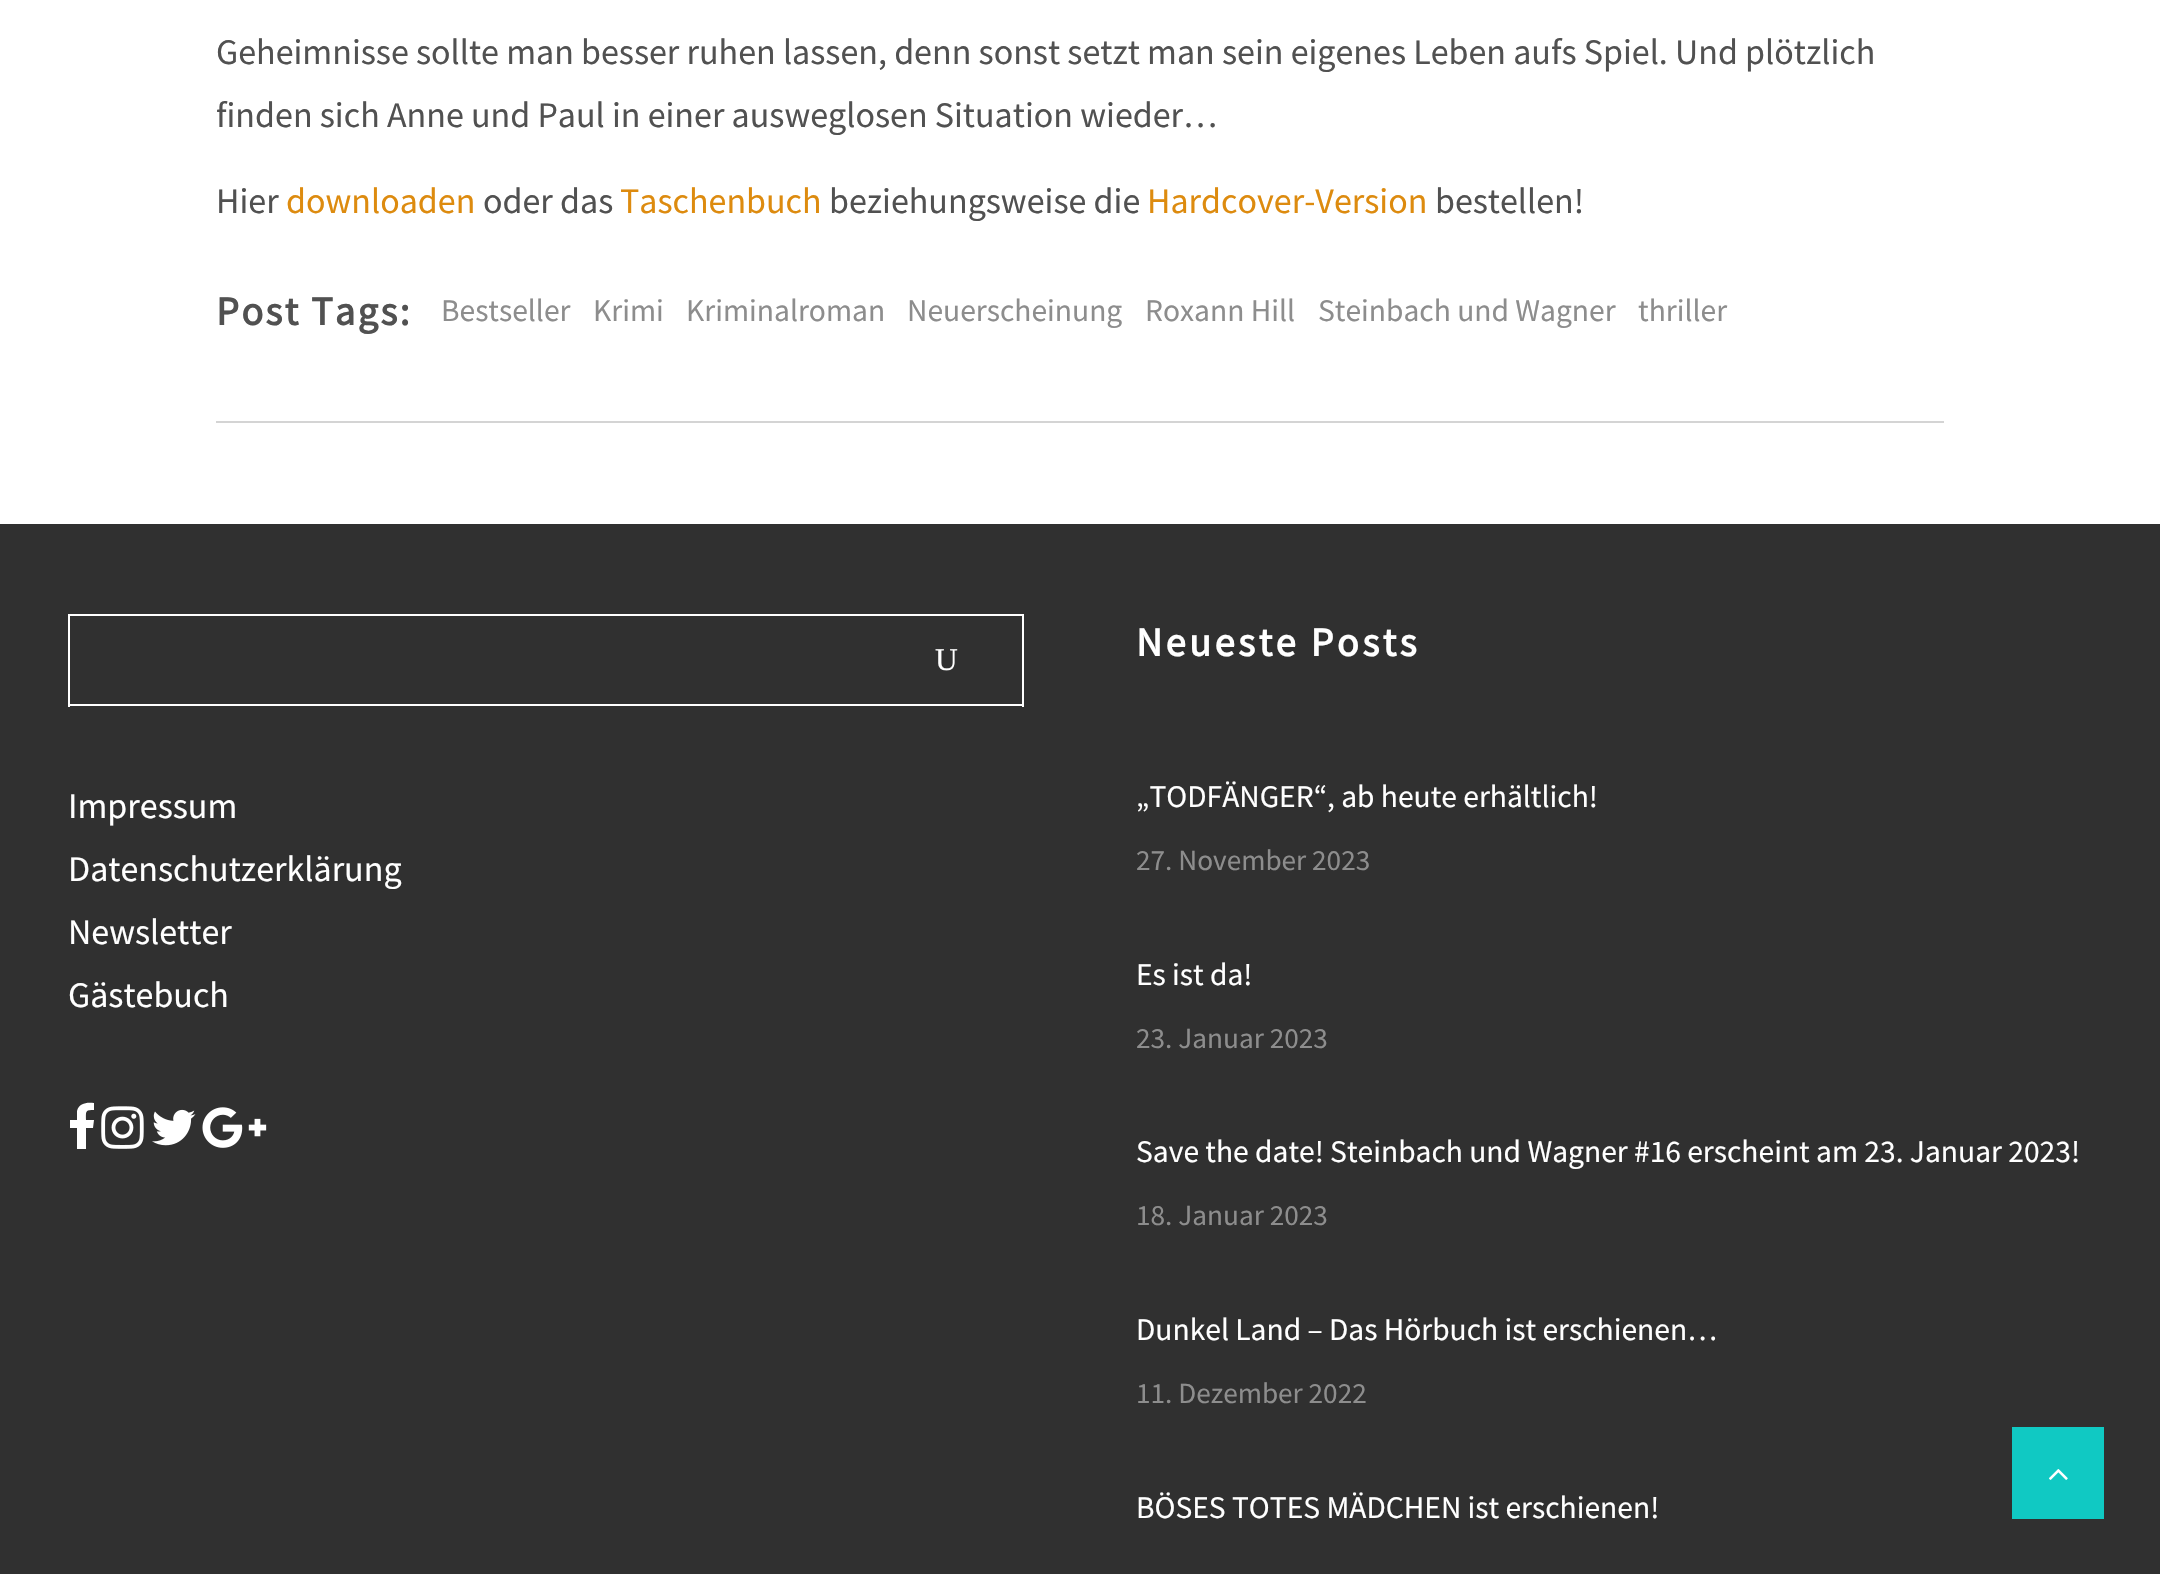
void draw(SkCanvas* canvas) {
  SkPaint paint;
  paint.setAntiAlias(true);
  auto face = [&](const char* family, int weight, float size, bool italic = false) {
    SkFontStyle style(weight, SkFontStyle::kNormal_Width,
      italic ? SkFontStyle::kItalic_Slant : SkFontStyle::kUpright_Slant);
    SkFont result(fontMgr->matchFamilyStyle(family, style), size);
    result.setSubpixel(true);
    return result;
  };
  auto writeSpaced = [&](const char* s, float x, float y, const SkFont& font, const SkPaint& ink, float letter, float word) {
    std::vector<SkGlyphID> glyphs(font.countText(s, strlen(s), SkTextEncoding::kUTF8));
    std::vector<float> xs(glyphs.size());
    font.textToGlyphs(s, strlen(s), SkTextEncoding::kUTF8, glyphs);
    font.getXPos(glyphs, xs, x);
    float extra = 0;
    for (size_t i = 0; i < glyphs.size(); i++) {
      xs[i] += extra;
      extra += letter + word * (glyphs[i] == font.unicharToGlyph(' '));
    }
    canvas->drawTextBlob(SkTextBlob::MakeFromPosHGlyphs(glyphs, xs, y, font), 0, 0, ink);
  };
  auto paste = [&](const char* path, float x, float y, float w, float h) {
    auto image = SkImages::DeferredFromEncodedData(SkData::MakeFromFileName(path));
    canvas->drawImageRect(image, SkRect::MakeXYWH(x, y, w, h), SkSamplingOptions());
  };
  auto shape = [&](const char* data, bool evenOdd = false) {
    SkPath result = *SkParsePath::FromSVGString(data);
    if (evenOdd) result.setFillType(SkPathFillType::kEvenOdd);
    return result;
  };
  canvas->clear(0xffffffff);
  {
    const struct { float x, y, w, h; SkColor color; } items[] = {
      {216, 421, 1728, 2, 0xffd4d4d4},
      {0, 524, 2160, 1050, 0xff303030},
      {68, 614, 956, 2, 0xffffffff},
      {68, 704, 803, 2, 0xffffffff},
      {68, 614, 2, 93, 0xffffffff},
      {1022, 614, 2, 93, 0xffffffff},
      {871, 704, 153, 2, 0xffffffff},
    };
    for (auto [x, y, w, h, color] : items) {
      paint.setColor(color);
      canvas->drawRect(SkRect::MakeXYWH(x, y, w, h), paint);
    }
  }
  canvas->drawPath(shape("M94 1103C87 1102 79 1103 77 1111V1120H70V1128H77V1149H86V1128H93L94 1120H86C86 1111 85 1110 94 1110Z"), paint);
  paste("img/1.png", 101, 1106, 43, 43);
  paste("img/2.png", 152, 1109, 44, 37);
  paste("img/3.png", 202, 1107, 65, 41);
  paint.setColor(0xff10c9c3);
  canvas->drawRect(SkRect::MakeXYWH(2012, 1427, 92, 92), paint);
  paste("img/4.png", 2049, 1469, 19, 11);
  auto f0 = face("Source Sans Pro", 400, 36);
  paint.setColor(0xff515151);
  {
    const struct { const char* s; float x, y; } items[] = {
      {"Geheimnisse sollte man besser ruhen lassen, denn sonst setzt man sein eigenes Leben aufs Spiel. Und plötzlich", 216, 64},
      {"finden sich Anne und Paul in einer ausweglosen Situation wieder…", 216, 127},
      {"Hier", 216, 213},
    };
    for (auto [s, x, y] : items) {
      canvas->drawString(s, x, y, f0, paint);
    }
  }
  paint.setColor(0xffdd8b0f);
  canvas->drawString("downloaden", 286, 213, f0, paint);
  paint.setColor(0xff515151);
  canvas->drawString("oder das", 483, 213, f0, paint);
  paint.setColor(0xffdd8b0f);
  canvas->drawString("Taschenbuch", 620, 213, f0, paint);
  paint.setColor(0xff515151);
  canvas->drawString("beziehungsweise die", 829, 213, f0, paint);
  paint.setColor(0xffdd8b0f);
  canvas->drawString("Hardcover-Version", 1147, 213, f0, paint);
  paint.setColor(0xff515151);
  canvas->drawString("bestellen!", 1435, 213, f0, paint);
  auto f1 = face("Source Sans Pro", 700, 40.5f);
  writeSpaced("Post Tags:", 216, 325, f1, paint, 2.25f, 0);
  auto f2 = face("Source Sans Pro", 400, 31.5f);
  paint.setColor(0xff8d8d8d);
  {
    const struct { const char* s; float x, y; } items[] = {
      {"Bestseller", 441, 321},
      {"Krimi", 593, 321},
      {"Kriminalroman", 686, 321},
      {"Neuerscheinung", 907, 321},
      {"Roxann Hill", 1145, 321},
      {"Steinbach und Wagner", 1318, 321},
      {"thriller", 1638, 321},
    };
    for (auto [s, x, y] : items) {
      canvas->drawString(s, x, y, f2, paint);
    }
  }
  auto f3 = face("Liberation Serif", 400, 31.5f);
  paint.setColor(0xffffffff);
  canvas->drawString("U", 935, 670, f3, paint);
  {
    const struct { const char* s; float x, y; } items[] = {
      {"Impressum", 68, 818},
      {"Datenschutzerklärung", 68, 881},
      {"Newsletter", 68, 944},
      {"Gästebuch", 68, 1007},
    };
    for (auto [s, x, y] : items) {
      canvas->drawString(s, x, y, f0, paint);
    }
  }
  writeSpaced("Neueste Posts", 1136, 656, f1, paint, 3.4f, 0);
  canvas->drawString("„TODFÄNGER“, ab heute erhältlich!", 1136, 807, f2, paint);
  auto f4 = face("Source Sans Pro", 400, 29.25f);
  paint.setColor(0xff8d8d8d);
  canvas->drawString("27. November 2023", 1136, 870, f4, paint);
  paint.setColor(0xffffffff);
  canvas->drawString("Es ist da!", 1136, 985, f2, paint);
  paint.setColor(0xff8d8d8d);
  canvas->drawString("23. Januar 2023", 1136, 1048, f4, paint);
  paint.setColor(0xffffffff);
  canvas->drawString("Save the date! Steinbach und Wagner #16 erscheint am 23. Januar 2023!", 1136, 1162, f2, paint);
  paint.setColor(0xff8d8d8d);
  canvas->drawString("18. Januar 2023", 1136, 1225, f4, paint);
  paint.setColor(0xffffffff);
  canvas->drawString("Dunkel Land – Das Hörbuch ist erschienen…", 1136, 1340, f2, paint);
  paint.setColor(0xff8d8d8d);
  canvas->drawString("11. Dezember 2022", 1136, 1403, f4, paint);
  paint.setColor(0xffffffff);
  canvas->drawString("BÖSES TOTES MÄDCHEN ist erschienen!", 1136, 1518, f2, paint);
}
